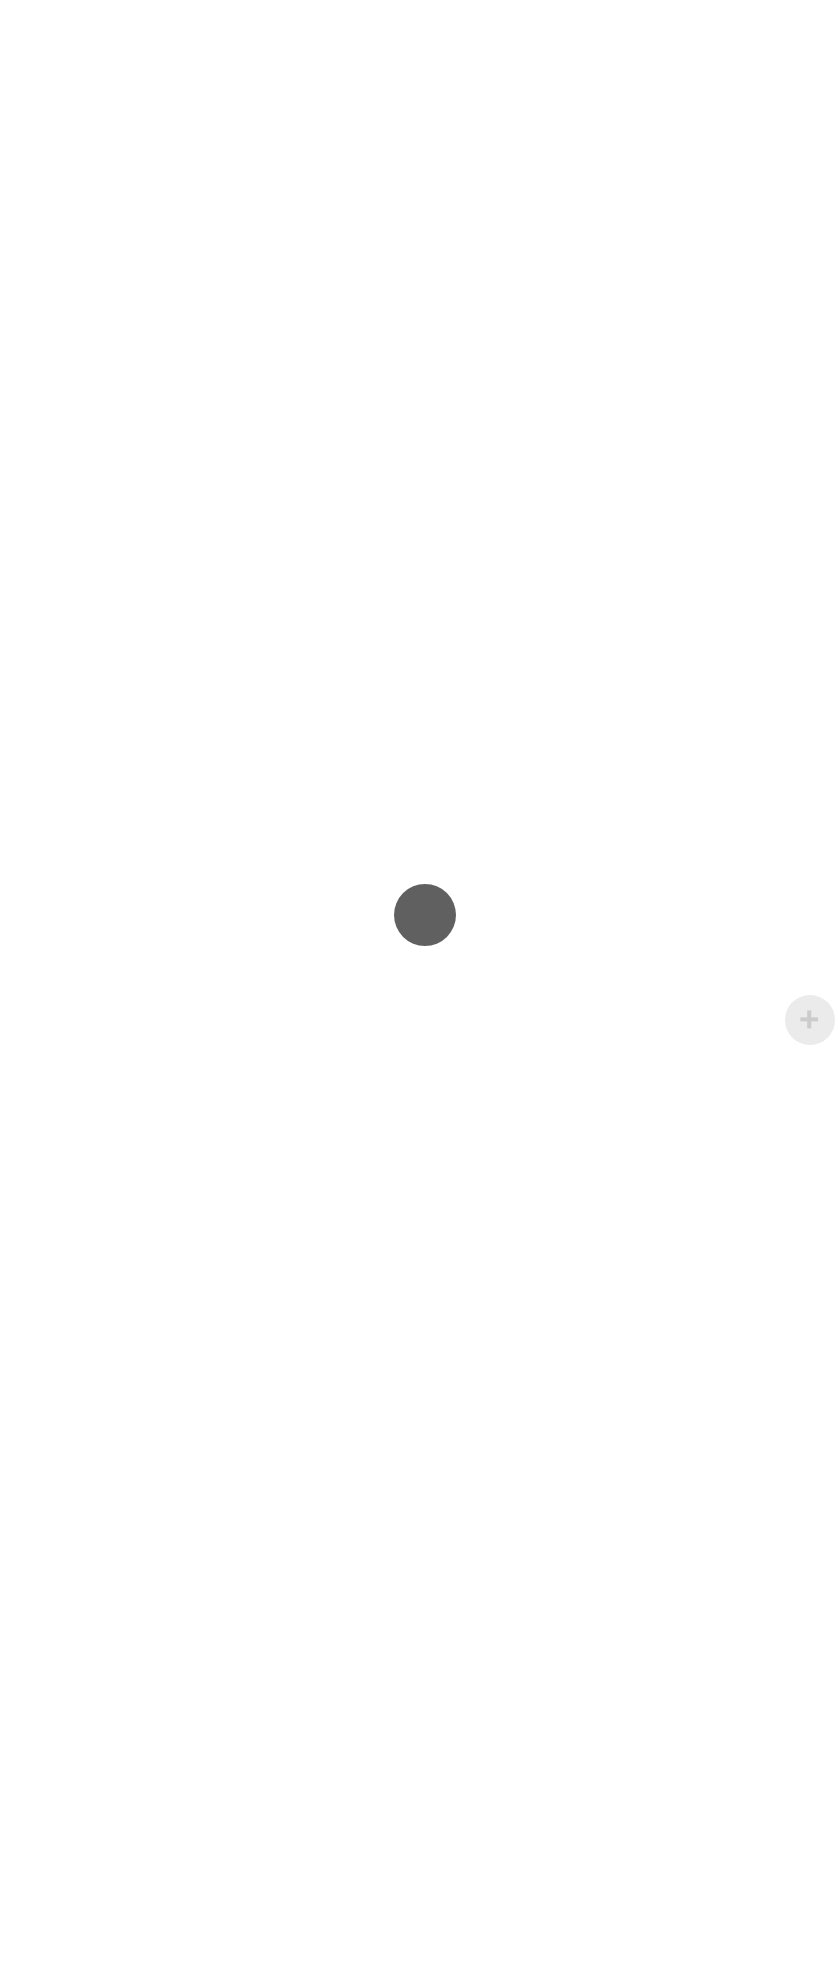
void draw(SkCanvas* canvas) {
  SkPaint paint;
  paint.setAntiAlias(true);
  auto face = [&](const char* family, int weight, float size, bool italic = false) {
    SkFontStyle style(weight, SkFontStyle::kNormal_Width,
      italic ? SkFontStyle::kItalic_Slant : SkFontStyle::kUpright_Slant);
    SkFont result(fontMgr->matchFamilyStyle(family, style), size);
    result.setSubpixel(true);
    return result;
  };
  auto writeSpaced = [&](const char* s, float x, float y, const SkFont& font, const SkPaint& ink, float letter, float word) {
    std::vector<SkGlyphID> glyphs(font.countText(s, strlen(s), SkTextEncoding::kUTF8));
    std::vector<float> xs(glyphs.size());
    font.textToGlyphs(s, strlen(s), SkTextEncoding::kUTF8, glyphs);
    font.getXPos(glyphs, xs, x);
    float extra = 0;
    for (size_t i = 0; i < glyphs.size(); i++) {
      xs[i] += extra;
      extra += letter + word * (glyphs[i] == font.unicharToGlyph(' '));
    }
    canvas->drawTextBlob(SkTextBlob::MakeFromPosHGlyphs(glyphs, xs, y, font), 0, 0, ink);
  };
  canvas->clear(0xffffffff);
  paint.setColor(0xff606060);
  canvas->drawCircle(425, 915, 31, paint);
  paint.setColor(0xffebebeb);
  canvas->drawCircle(810, 1020, 25, paint);
  auto f0 = face("Liberation Sans", 700, 35);
  paint.setColor(0xffcccccc);
  writeSpaced("+", 799, 1031, f0, paint, 1, 0);
}
